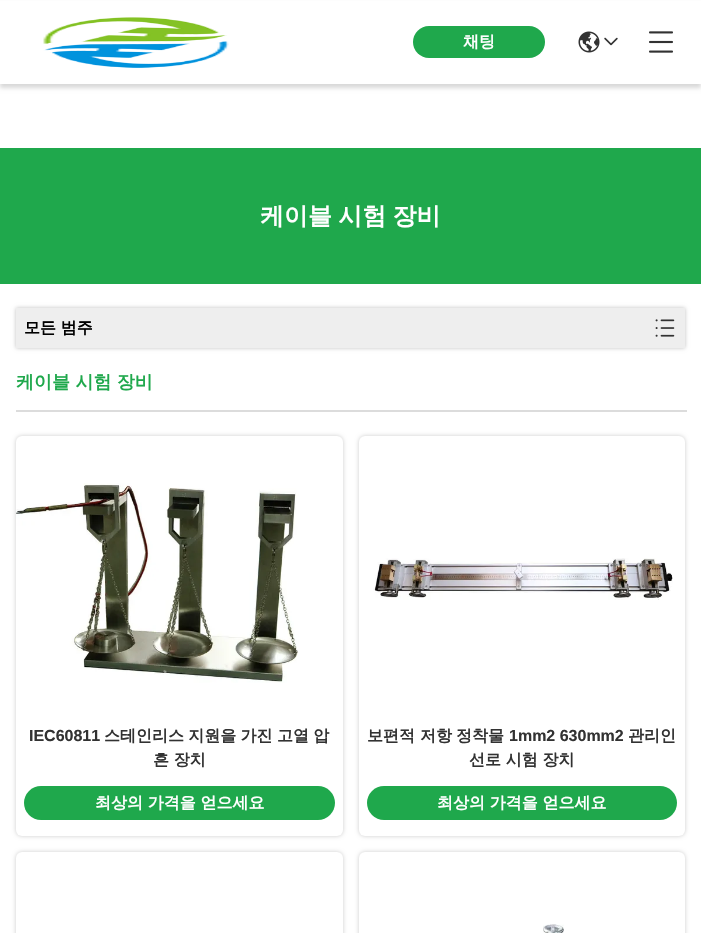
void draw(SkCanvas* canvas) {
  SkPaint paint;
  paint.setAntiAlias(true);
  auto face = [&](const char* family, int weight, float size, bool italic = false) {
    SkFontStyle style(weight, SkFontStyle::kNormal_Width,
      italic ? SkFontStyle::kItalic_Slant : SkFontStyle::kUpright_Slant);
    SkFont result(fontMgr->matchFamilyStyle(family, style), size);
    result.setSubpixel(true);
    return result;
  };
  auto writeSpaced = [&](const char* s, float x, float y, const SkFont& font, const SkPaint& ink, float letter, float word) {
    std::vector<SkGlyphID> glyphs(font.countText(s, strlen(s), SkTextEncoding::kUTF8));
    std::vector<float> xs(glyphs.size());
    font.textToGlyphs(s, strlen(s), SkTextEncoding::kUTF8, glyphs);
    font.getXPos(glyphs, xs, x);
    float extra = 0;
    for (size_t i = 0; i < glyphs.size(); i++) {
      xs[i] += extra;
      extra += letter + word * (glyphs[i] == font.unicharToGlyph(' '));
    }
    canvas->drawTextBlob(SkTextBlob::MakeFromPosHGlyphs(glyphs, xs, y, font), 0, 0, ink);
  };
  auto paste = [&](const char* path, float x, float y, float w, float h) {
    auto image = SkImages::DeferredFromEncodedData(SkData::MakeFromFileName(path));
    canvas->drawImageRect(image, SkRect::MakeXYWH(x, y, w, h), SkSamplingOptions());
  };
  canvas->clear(0xffffffff);
  paint.setColor(0x26000000);
  paint.setMaskFilter(SkMaskFilter::MakeBlur(kNormal_SkBlurStyle, 2));
  canvas->drawRect(SkRect::MakeXYWH(0, 4, 701, 84), paint);
  paint.setMaskFilter(nullptr);
  paint.setColor(0xffffffff);
  canvas->drawRect(SkRect::MakeXYWH(0, 1, 701, 83), paint);
  paste("img/1.png", 43, 17, 186, 51);
  paint.setColor(0xff1fa84c);
  canvas->drawRoundRect(SkRect::MakeXYWH(413, 26, 132, 32), 16, 16, paint);
  paste("img/2.png", 578, 31, 22, 22);
  paste("img/3.png", 604, 37, 14, 9);
  paste("img/4.png", 649, 31, 24, 22);
  canvas->drawRect(SkRect::MakeXYWH(0, 148, 701, 136), paint);
  paint.setColor(0x40000000);
  paint.setMaskFilter(SkMaskFilter::MakeBlur(kNormal_SkBlurStyle, 2));
  canvas->drawRect(SkRect::MakeXYWH(16, 308, 669, 40), paint);
  paint.setMaskFilter(nullptr);
  paint.setColor(0xffeeeeee);
  canvas->drawRect(SkRect::MakeXYWH(16, 308, 669, 40), paint);
  paste("img/5.png", 655, 319, 20, 18);
  paint.setColor(0xffdcdcdc);
  canvas->drawRect(SkRect::MakeXYWH(16, 410, 671, 2), paint);
  paint.setColor(0x33000000);
  paint.setMaskFilter(SkMaskFilter::MakeBlur(kNormal_SkBlurStyle, 2));
  canvas->drawRoundRect(SkRect::MakeXYWH(16, 436, 327, 400), 6, 6, paint);
  paint.setMaskFilter(nullptr);
  paint.setColor(0xffffffff);
  canvas->drawRoundRect(SkRect::MakeXYWH(16, 436, 327, 400), 6, 6, paint);
  paste("img/6.png", 16, 483, 283, 200);
  paint.setColor(0xff1fa84c);
  canvas->drawRoundRect(SkRect::MakeXYWH(24, 786, 311, 34), 17, 17, paint);
  paint.setColor(0x33000000);
  paint.setMaskFilter(SkMaskFilter::MakeBlur(kNormal_SkBlurStyle, 2));
  canvas->drawRoundRect(SkRect::MakeXYWH(359, 436, 326, 400), 6, 6, paint);
  paint.setMaskFilter(nullptr);
  paint.setColor(0xffffffff);
  canvas->drawRoundRect(SkRect::MakeXYWH(359, 436, 326, 400), 6, 6, paint);
  paste("img/7.png", 373, 558, 300, 42);
  paint.setColor(0xff1fa84c);
  canvas->drawRoundRect(SkRect::MakeXYWH(367, 786, 310, 34), 17, 17, paint);
  paint.setColor(0x33000000);
  paint.setMaskFilter(SkMaskFilter::MakeBlur(kNormal_SkBlurStyle, 2));
  canvas->drawRoundRect(SkRect::MakeXYWH(16, 852, 327, 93), 6, 6, paint);
  paint.setMaskFilter(nullptr);
  paint.setColor(0xffffffff);
  canvas->drawRoundRect(SkRect::MakeXYWH(16, 852, 327, 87), 6, 6, paint);
  paint.setColor(0x33000000);
  paint.setMaskFilter(SkMaskFilter::MakeBlur(kNormal_SkBlurStyle, 2));
  canvas->drawRoundRect(SkRect::MakeXYWH(359, 852, 326, 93), 6, 6, paint);
  paint.setMaskFilter(nullptr);
  paint.setColor(0xffffffff);
  canvas->drawRoundRect(SkRect::MakeXYWH(359, 852, 326, 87), 6, 6, paint);
  paste("img/8.png", 543, 924, 21, 9);
  auto f0 = face("WenQuanYi Zen Hei", 700, 16);
  canvas->drawString("채팅", 463, 47, f0, paint);
  auto f1 = face("WenQuanYi Zen Hei", 700, 24);
  writeSpaced("케이블 시험 장비", 260, 224, f1, paint, 0, -1);
  paint.setColor(0xff000000);
  canvas->drawString("모든 범주", 24, 333, f0, paint);
  auto f2 = face("WenQuanYi Zen Hei", 700, 18);
  paint.setColor(0xff1fa84c);
  canvas->drawString("케이블 시험 장비", 16, 388, f2, paint);
  auto f3 = face("Liberation Sans", 700, 16);
  paint.setColor(0xff323232);
  canvas->drawString("IEC60811", 29, 741, f3, paint);
  writeSpaced("스테인리스 지원을 가진 고열 압", 104, 741, f0, paint, 0, -0.5f);
  canvas->drawString("흔 장치", 153, 765, f0, paint);
  paint.setColor(0xffffffff);
  canvas->drawString("최상의 가격을 얻으세요", 95, 808, f0, paint);
  paint.setColor(0xff323232);
  {
    const struct { const char* s; float x, y; } items[] = {
      {"보편적", 367, 741},
      {"저항", 420, 741},
      {"정착물", 456, 741},
    };
    for (auto [s, x, y] : items) {
      canvas->drawString(s, x, y, f0, paint);
    }
  }
  canvas->drawString("1mm2 630mm2", 509, 741, f3, paint);
  canvas->drawString("관리인", 628, 741, f0, paint);
  canvas->drawString("선로 시험 장치", 469, 765, f0, paint);
  paint.setColor(0xffffffff);
  canvas->drawString("최상의 가격을 얻으세요", 437, 808, f0, paint);
}
